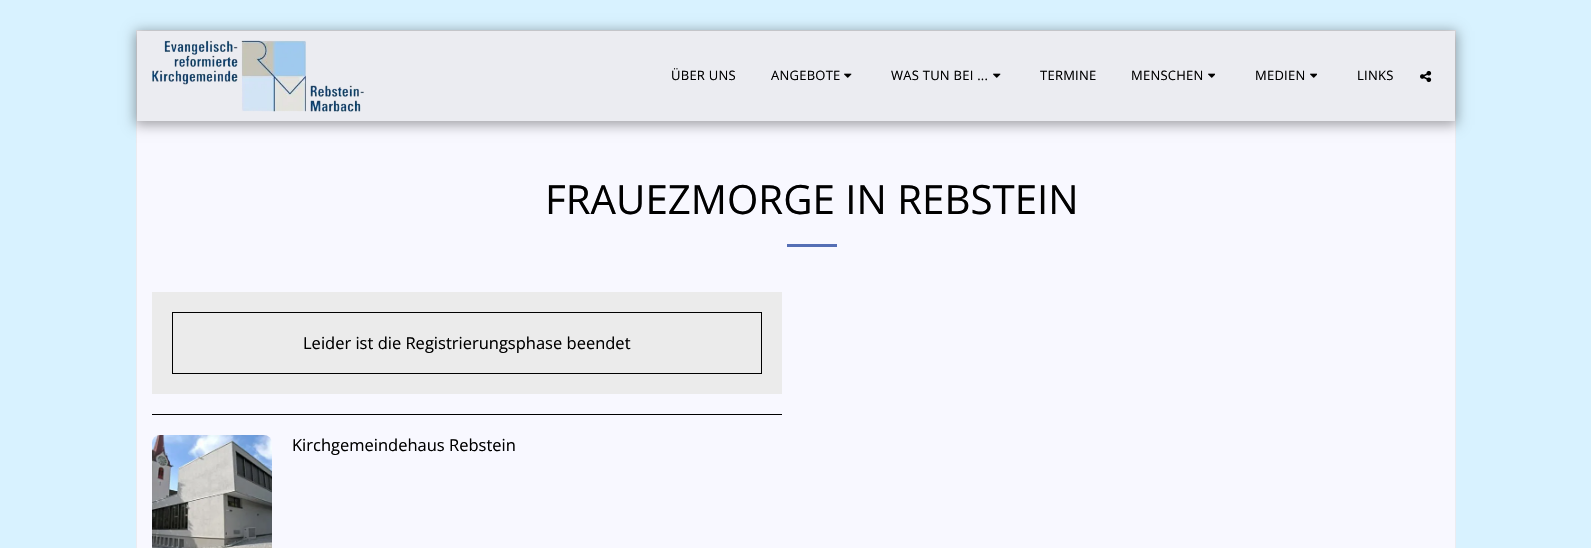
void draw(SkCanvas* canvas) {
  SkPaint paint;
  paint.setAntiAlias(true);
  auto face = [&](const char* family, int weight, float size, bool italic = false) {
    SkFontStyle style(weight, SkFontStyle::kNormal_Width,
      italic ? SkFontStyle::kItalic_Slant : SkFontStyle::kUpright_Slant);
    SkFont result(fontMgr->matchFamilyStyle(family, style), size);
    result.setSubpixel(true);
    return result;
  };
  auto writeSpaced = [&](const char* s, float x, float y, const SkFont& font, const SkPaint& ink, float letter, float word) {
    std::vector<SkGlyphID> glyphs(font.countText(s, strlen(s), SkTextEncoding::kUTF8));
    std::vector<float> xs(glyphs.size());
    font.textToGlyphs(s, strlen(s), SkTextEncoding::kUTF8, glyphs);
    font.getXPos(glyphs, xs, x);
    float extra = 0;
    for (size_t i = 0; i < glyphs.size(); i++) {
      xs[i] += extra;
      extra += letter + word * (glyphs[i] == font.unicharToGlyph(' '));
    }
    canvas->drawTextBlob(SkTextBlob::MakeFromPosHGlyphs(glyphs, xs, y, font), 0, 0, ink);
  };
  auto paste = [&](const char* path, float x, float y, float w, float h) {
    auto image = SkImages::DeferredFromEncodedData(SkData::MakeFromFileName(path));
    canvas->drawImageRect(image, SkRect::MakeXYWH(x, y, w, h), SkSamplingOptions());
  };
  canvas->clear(0xffd8f2ff);
  paint.setStroke(true);
  paint.setStrokeWidth(1);
  paint.setColor(0xffebecf1);
  canvas->drawRect(SkRect::MakeXYWH(136.5f, 30.5f, 1319, 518), paint);
  paint.setStroke(false);
  paint.setColor(0xfff8f8ff);
  canvas->drawRect(SkRect::MakeXYWH(137, 121, 1318, 427), paint);
  paint.setColor(0x59000000);
  paint.setMaskFilter(SkMaskFilter::MakeBlur(kNormal_SkBlurStyle, 6));
  canvas->drawRect(SkRect::MakeXYWH(135, 31, 1322, 94), paint);
  paint.setMaskFilter(nullptr);
  paint.setColor(0xffebecf1);
  canvas->drawRect(SkRect::MakeXYWH(137, 31, 1318, 90), paint);
  paste("img/1.png", 152, 40, 212, 72);
  paste("img/2.png", 844, 73, 8, 5);
  paste("img/2.png", 993, 73, 8, 5);
  paste("img/3.png", 1208, 73, 7, 5);
  paste("img/3.png", 1310, 73, 7, 5);
  paste("img/4.png", 1420, 70, 12, 13);
  paint.setColor(0xff556fb5);
  canvas->drawRect(SkRect::MakeXYWH(787, 244, 50, 3), paint);
  paint.setColor(0xffebebeb);
  canvas->drawRect(SkRect::MakeXYWH(152, 292, 630, 102), paint);
  paint.setStroke(true);
  paint.setColor(0xff000000);
  canvas->drawRect(SkRect::MakeXYWH(172.5f, 312.5f, 589, 61), paint);
  paint.setStroke(false);
  canvas->drawRect(SkRect::MakeXYWH(152, 414, 630, 1), paint);
  paste("img/5.png", 152, 435, 120, 113);
  auto f0 = face("Open Sans", 400, 13);
  {
    const struct { const char* s; float x, y; } items[] = {
      {"ÜBER UNS", 671, 80},
      {"ANGEBOTE", 771, 80},
      {"WAS TUN BEI ...", 891, 80},
      {"TERMINE", 1040, 80},
      {"MENSCHEN", 1131, 80},
      {"MEDIEN", 1255, 80},
      {"LINKS", 1357, 80},
    };
    for (auto [s, x, y] : items) {
      writeSpaced(s, x, y, f0, paint, 0.25f, 0);
    }
  }
  auto f1 = face("Open Sans", 400, 40.25f);
  canvas->drawString("FRAUEZMORGE IN REBSTEIN", 545, 214, f1, paint);
  auto f2 = face("Open Sans", 400, 16.5f);
  canvas->drawString("Leider ist die Registrierungsphase beendet", 303, 349, f2, paint);
  canvas->drawString("Kirchgemeindehaus Rebstein", 292, 451, f2, paint);
}
